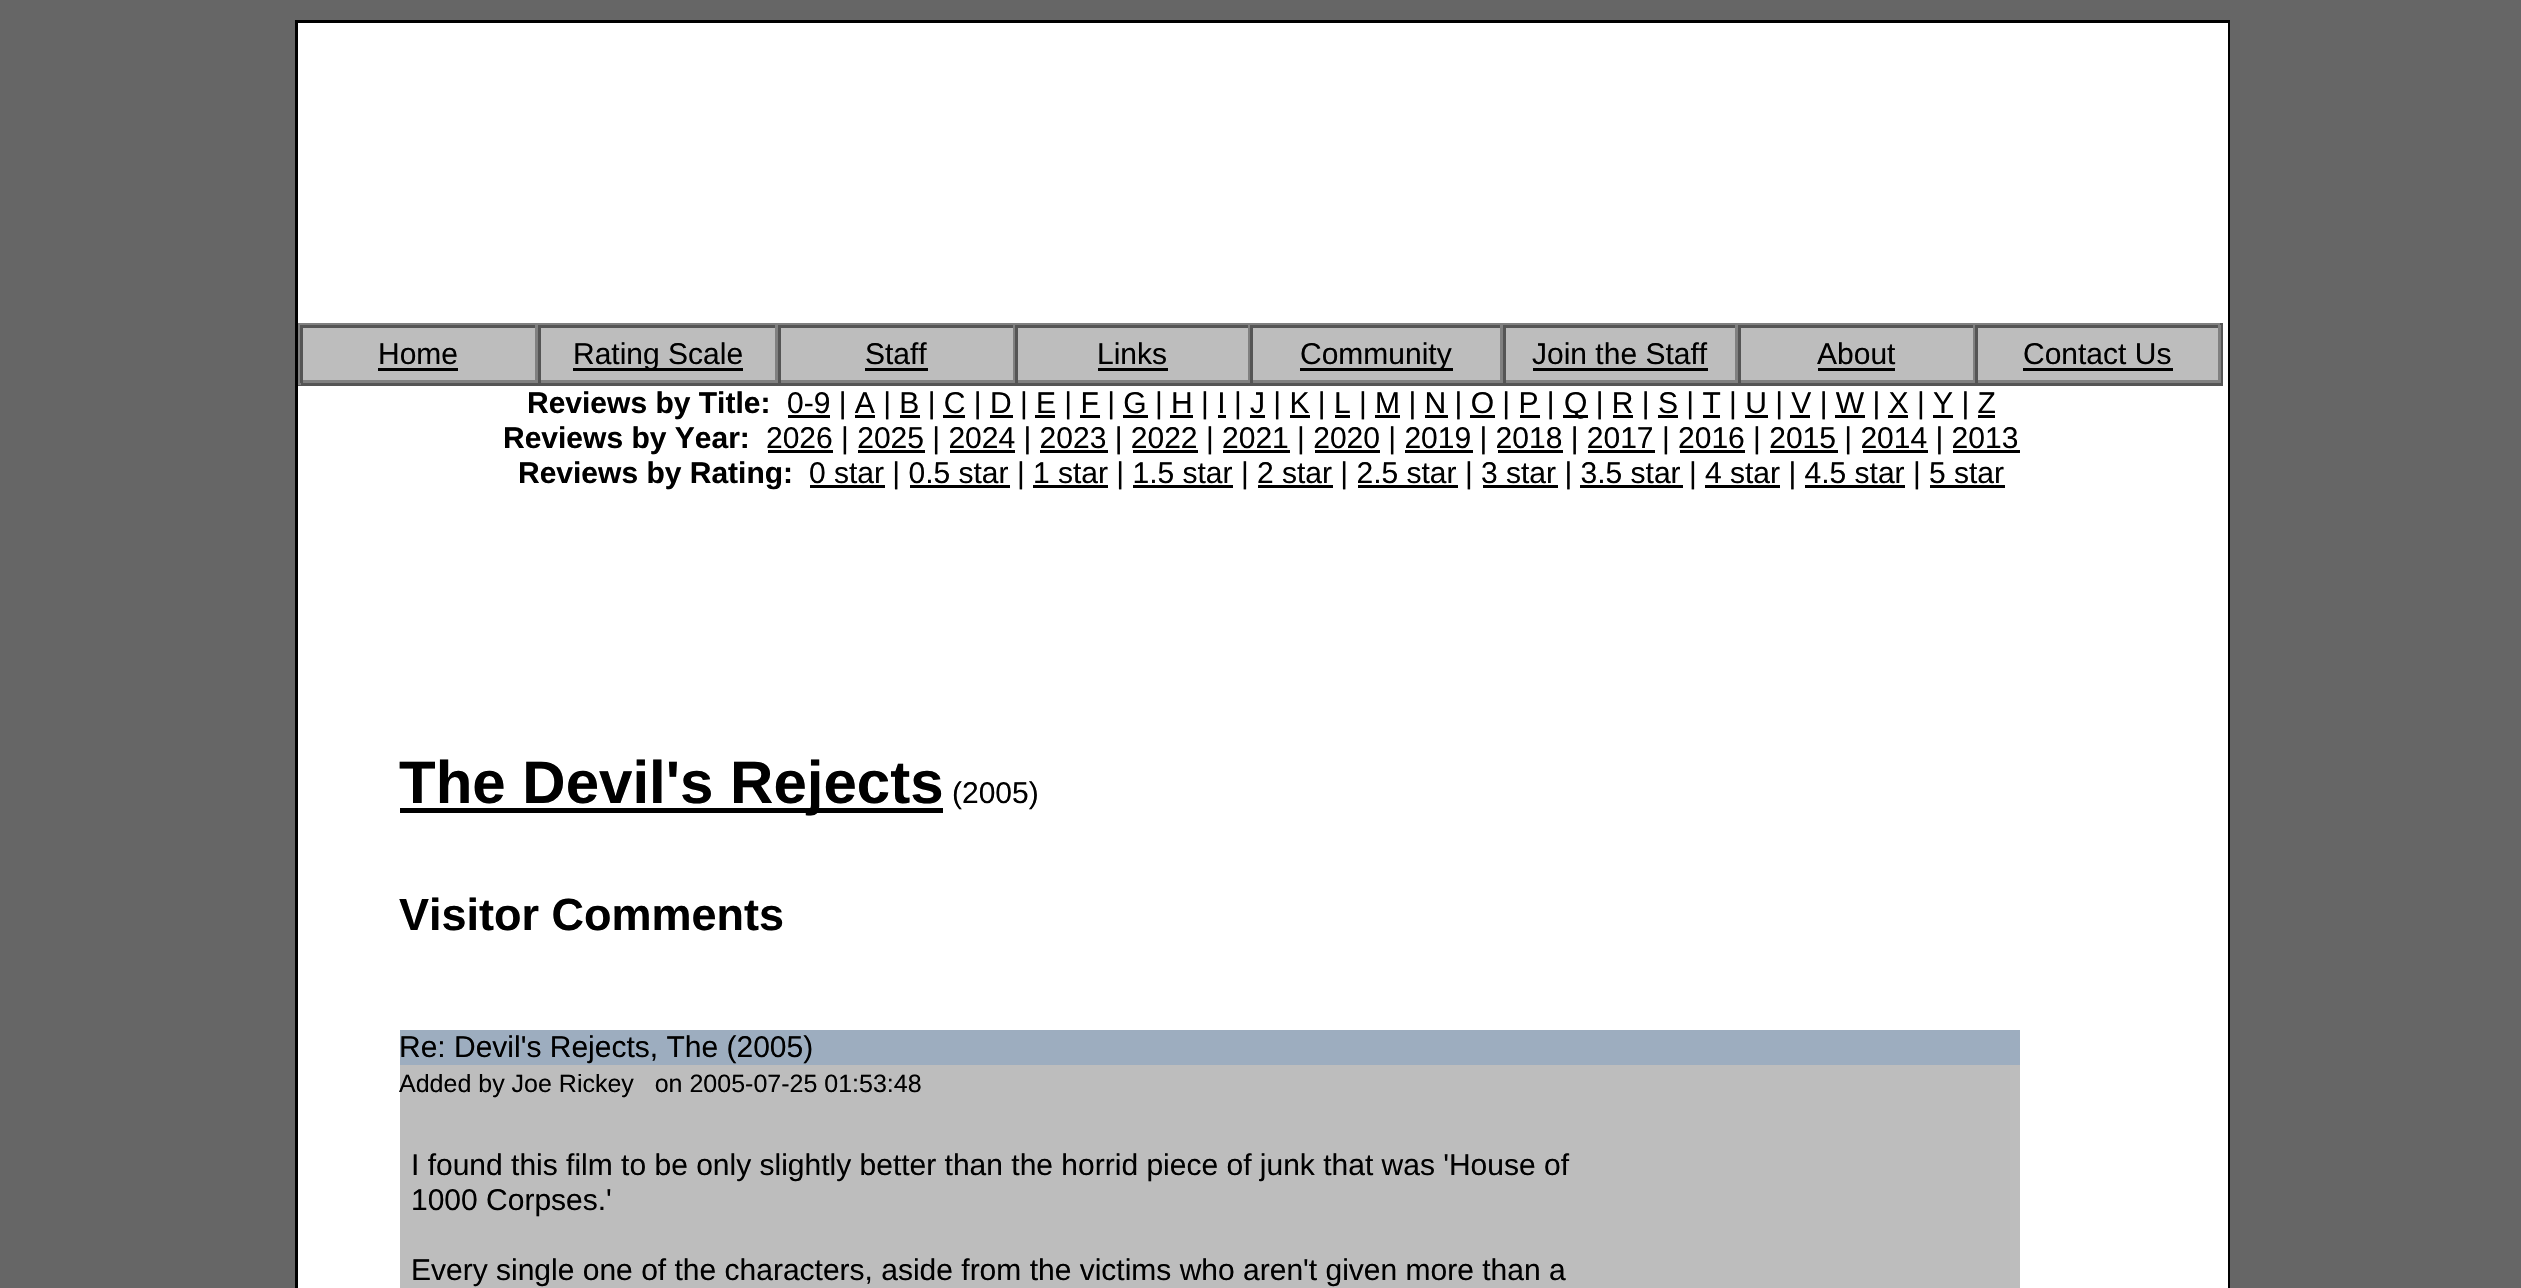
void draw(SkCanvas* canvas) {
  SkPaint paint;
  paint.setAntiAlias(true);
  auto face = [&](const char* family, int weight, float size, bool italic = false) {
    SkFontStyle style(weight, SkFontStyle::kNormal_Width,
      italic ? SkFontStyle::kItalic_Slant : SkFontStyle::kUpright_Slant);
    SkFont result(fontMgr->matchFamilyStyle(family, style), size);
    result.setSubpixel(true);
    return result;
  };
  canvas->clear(0xff666666);
  {
    const struct { float x, y, w, h; SkColor color; } items[] = {
      {295, 20, 1935, 1268, 0xff000000},
      {298, 23, 1930, 1265, 0xffffffff},
      {298, 323, 1925, 2, 0xff808080},
      {2220, 323, 3, 62, 0xff555555},
      {298, 383, 1925, 3, 0xff555555},
      {298, 323, 3, 62, 0xff808080},
      {303, 328, 1915, 52, 0xffbdbdbd},
      {300, 325, 1920, 3, 0xff555555},
      {535, 325, 3, 58, 0xff808080},
      {300, 380, 238, 3, 0xff808080},
      {300, 325, 3, 58, 0xff555555},
      {378, 368, 80, 3, 0xff000000},
      {775, 325, 3, 58, 0xff808080},
      {538, 380, 240, 3, 0xff808080},
      {538, 325, 3, 58, 0xff555555},
      {573, 368, 170, 3, 0xff000000},
      {1013, 325, 2, 58, 0xff808080},
      {778, 380, 237, 3, 0xff808080},
      {778, 325, 3, 58, 0xff555555},
      {865, 368, 63, 3, 0xff000000},
      {1248, 325, 2, 58, 0xff808080},
      {1015, 380, 235, 3, 0xff808080},
      {1015, 325, 3, 58, 0xff555555},
      {1098, 368, 70, 3, 0xff000000},
      {1500, 325, 3, 58, 0xff808080},
      {1250, 380, 253, 3, 0xff808080},
      {1250, 325, 3, 58, 0xff555555},
      {1300, 368, 153, 3, 0xff000000},
      {1735, 325, 3, 58, 0xff808080},
      {1503, 380, 235, 3, 0xff808080},
      {1503, 325, 3, 58, 0xff555555},
      {1533, 368, 175, 3, 0xff000000},
      {1973, 325, 2, 58, 0xff808080},
      {1738, 380, 237, 3, 0xff808080},
      {1738, 325, 3, 58, 0xff555555},
      {1818, 368, 77, 3, 0xff000000},
      {2218, 325, 3, 58, 0xff808080},
      {1975, 380, 245, 3, 0xff808080},
      {1975, 325, 3, 58, 0xff555555},
      {2023, 368, 150, 3, 0xff000000},
      {788, 415, 42, 3, 0xff000000},
      {1563, 415, 25, 3, 0xff000000},
      {855, 415, 20, 3, 0xff000000},
      {900, 415, 20, 3, 0xff000000},
      {943, 415, 22, 3, 0xff000000},
      {990, 415, 23, 3, 0xff000000},
      {1035, 415, 20, 3, 0xff000000},
      {1080, 415, 20, 3, 0xff000000},
      {1123, 415, 25, 3, 0xff000000},
      {1170, 415, 23, 3, 0xff000000},
      {1218, 415, 8, 3, 0xff000000},
      {1250, 415, 15, 3, 0xff000000},
      {1290, 415, 20, 3, 0xff000000},
      {1335, 415, 15, 3, 0xff000000},
      {1375, 415, 25, 3, 0xff000000},
      {1425, 415, 23, 3, 0xff000000},
      {1470, 415, 25, 3, 0xff000000},
      {1520, 415, 20, 3, 0xff000000},
      {1613, 415, 20, 3, 0xff000000},
      {1658, 415, 20, 3, 0xff000000},
      {1703, 415, 17, 3, 0xff000000},
      {1745, 415, 23, 3, 0xff000000},
      {1790, 415, 20, 3, 0xff000000},
      {1835, 415, 30, 3, 0xff000000},
      {1888, 415, 20, 3, 0xff000000},
      {1933, 415, 20, 3, 0xff000000},
      {1978, 415, 17, 3, 0xff000000},
      {768, 450, 65, 3, 0xff000000},
      {858, 450, 67, 3, 0xff000000},
      {950, 450, 65, 3, 0xff000000},
      {1040, 450, 68, 3, 0xff000000},
      {1133, 450, 65, 3, 0xff000000},
      {1223, 450, 67, 3, 0xff000000},
      {1315, 450, 65, 3, 0xff000000},
      {1405, 450, 68, 3, 0xff000000},
      {1498, 450, 65, 3, 0xff000000},
      {1588, 450, 67, 3, 0xff000000},
      {1680, 450, 65, 3, 0xff000000},
      {1770, 450, 68, 3, 0xff000000},
      {1863, 450, 65, 3, 0xff000000},
      {1953, 450, 67, 3, 0xff000000},
      {810, 485, 75, 3, 0xff000000},
      {910, 485, 100, 3, 0xff000000},
      {1033, 485, 75, 3, 0xff000000},
      {1133, 485, 100, 3, 0xff000000},
      {1258, 485, 75, 3, 0xff000000},
      {1358, 485, 100, 3, 0xff000000},
      {1483, 485, 75, 3, 0xff000000},
      {1580, 485, 103, 3, 0xff000000},
      {1705, 485, 75, 3, 0xff000000},
      {1805, 485, 100, 3, 0xff000000},
      {1930, 485, 75, 3, 0xff000000},
      {400, 808, 543, 5, 0xff000000},
      {400, 1065, 1620, 223, 0xffbdbdbd},
      {400, 1030, 1620, 35, 0xff9dadbf},
    };
    for (auto [x, y, w, h, color] : items) {
      paint.setColor(color);
      canvas->drawRect(SkRect::MakeXYWH(x, y, w, h), paint);
    }
  }
  auto f0 = face("Liberation Sans", 400, 30);
  paint.setColor(0xff000000);
  {
    const struct { const char* s; float x, y; } items[] = {
      {"Home", 378, 364},
      {"Rating Scale", 573, 364},
      {"Staff", 865, 364},
      {"Links", 1097, 364},
      {"Community", 1300, 364},
      {"Join the Staff", 1532, 364},
      {"About", 1817, 364},
      {"Contact Us", 2023, 364},
    };
    for (auto [s, x, y] : items) {
      canvas->drawString(s, x, y, f0, paint);
    }
  }
  auto f1 = face("Liberation Sans", 700, 30);
  canvas->drawString("Reviews by Title:", 527, 413, f1, paint);
  canvas->drawString("0-9 | A | B | C | D | E | F | G | H | I | J | K | L | M | N | O | P |", 787, 413, f0, paint);
  canvas->drawString("Q | R | S | T | U | V | W | X | Y | Z", 1564, 413, f0, paint);
  canvas->drawString("Reviews by Year:", 503, 448, f1, paint);
  canvas->drawString("2026 | 2025 | 2024 | 2023 | 2022 | 2021 | 2020 | 2019 | 2018 | 2017 | 2016 | 2015 | 2014 | 2013", 766, 448, f0, paint);
  canvas->drawString("Reviews by Rating:", 518, 483, f1, paint);
  canvas->drawString("0 star | 0.5 star | 1 star | 1.5 star | 2 star | 2.5 star | 3 star | 3.5 star | 4 star | 4.5 star | 5 star", 809, 483, f0, paint);
  auto f2 = face("Liberation Sans", 700, 60);
  canvas->drawString("The Devil's Rejects", 399, 803, f2, paint);
  canvas->drawString("(2005)", 952, 803, f0, paint);
  auto f3 = face("Liberation Sans", 700, 45);
  canvas->drawString("Visitor Comments", 399, 930, f3, paint);
  canvas->drawString("Re: Devil's Rejects, The (2005)", 399, 1057, f0, paint);
  auto f4 = face("Liberation Sans", 400, 25);
  canvas->drawString("Added by Joe Rickey   on 2005-07-25 01:53:48", 399, 1092, f4, paint);
  {
    const struct { const char* s; float x, y; } items[] = {
      {"I found this film to be only slightly better than the horrid piece of junk that was 'House of", 411, 1175},
      {"1000 Corpses.'", 411, 1210},
      {"Every single one of the characters, aside from the victims who aren't given more than a", 411, 1280},
    };
    for (auto [s, x, y] : items) {
      canvas->drawString(s, x, y, f0, paint);
    }
  }
}
